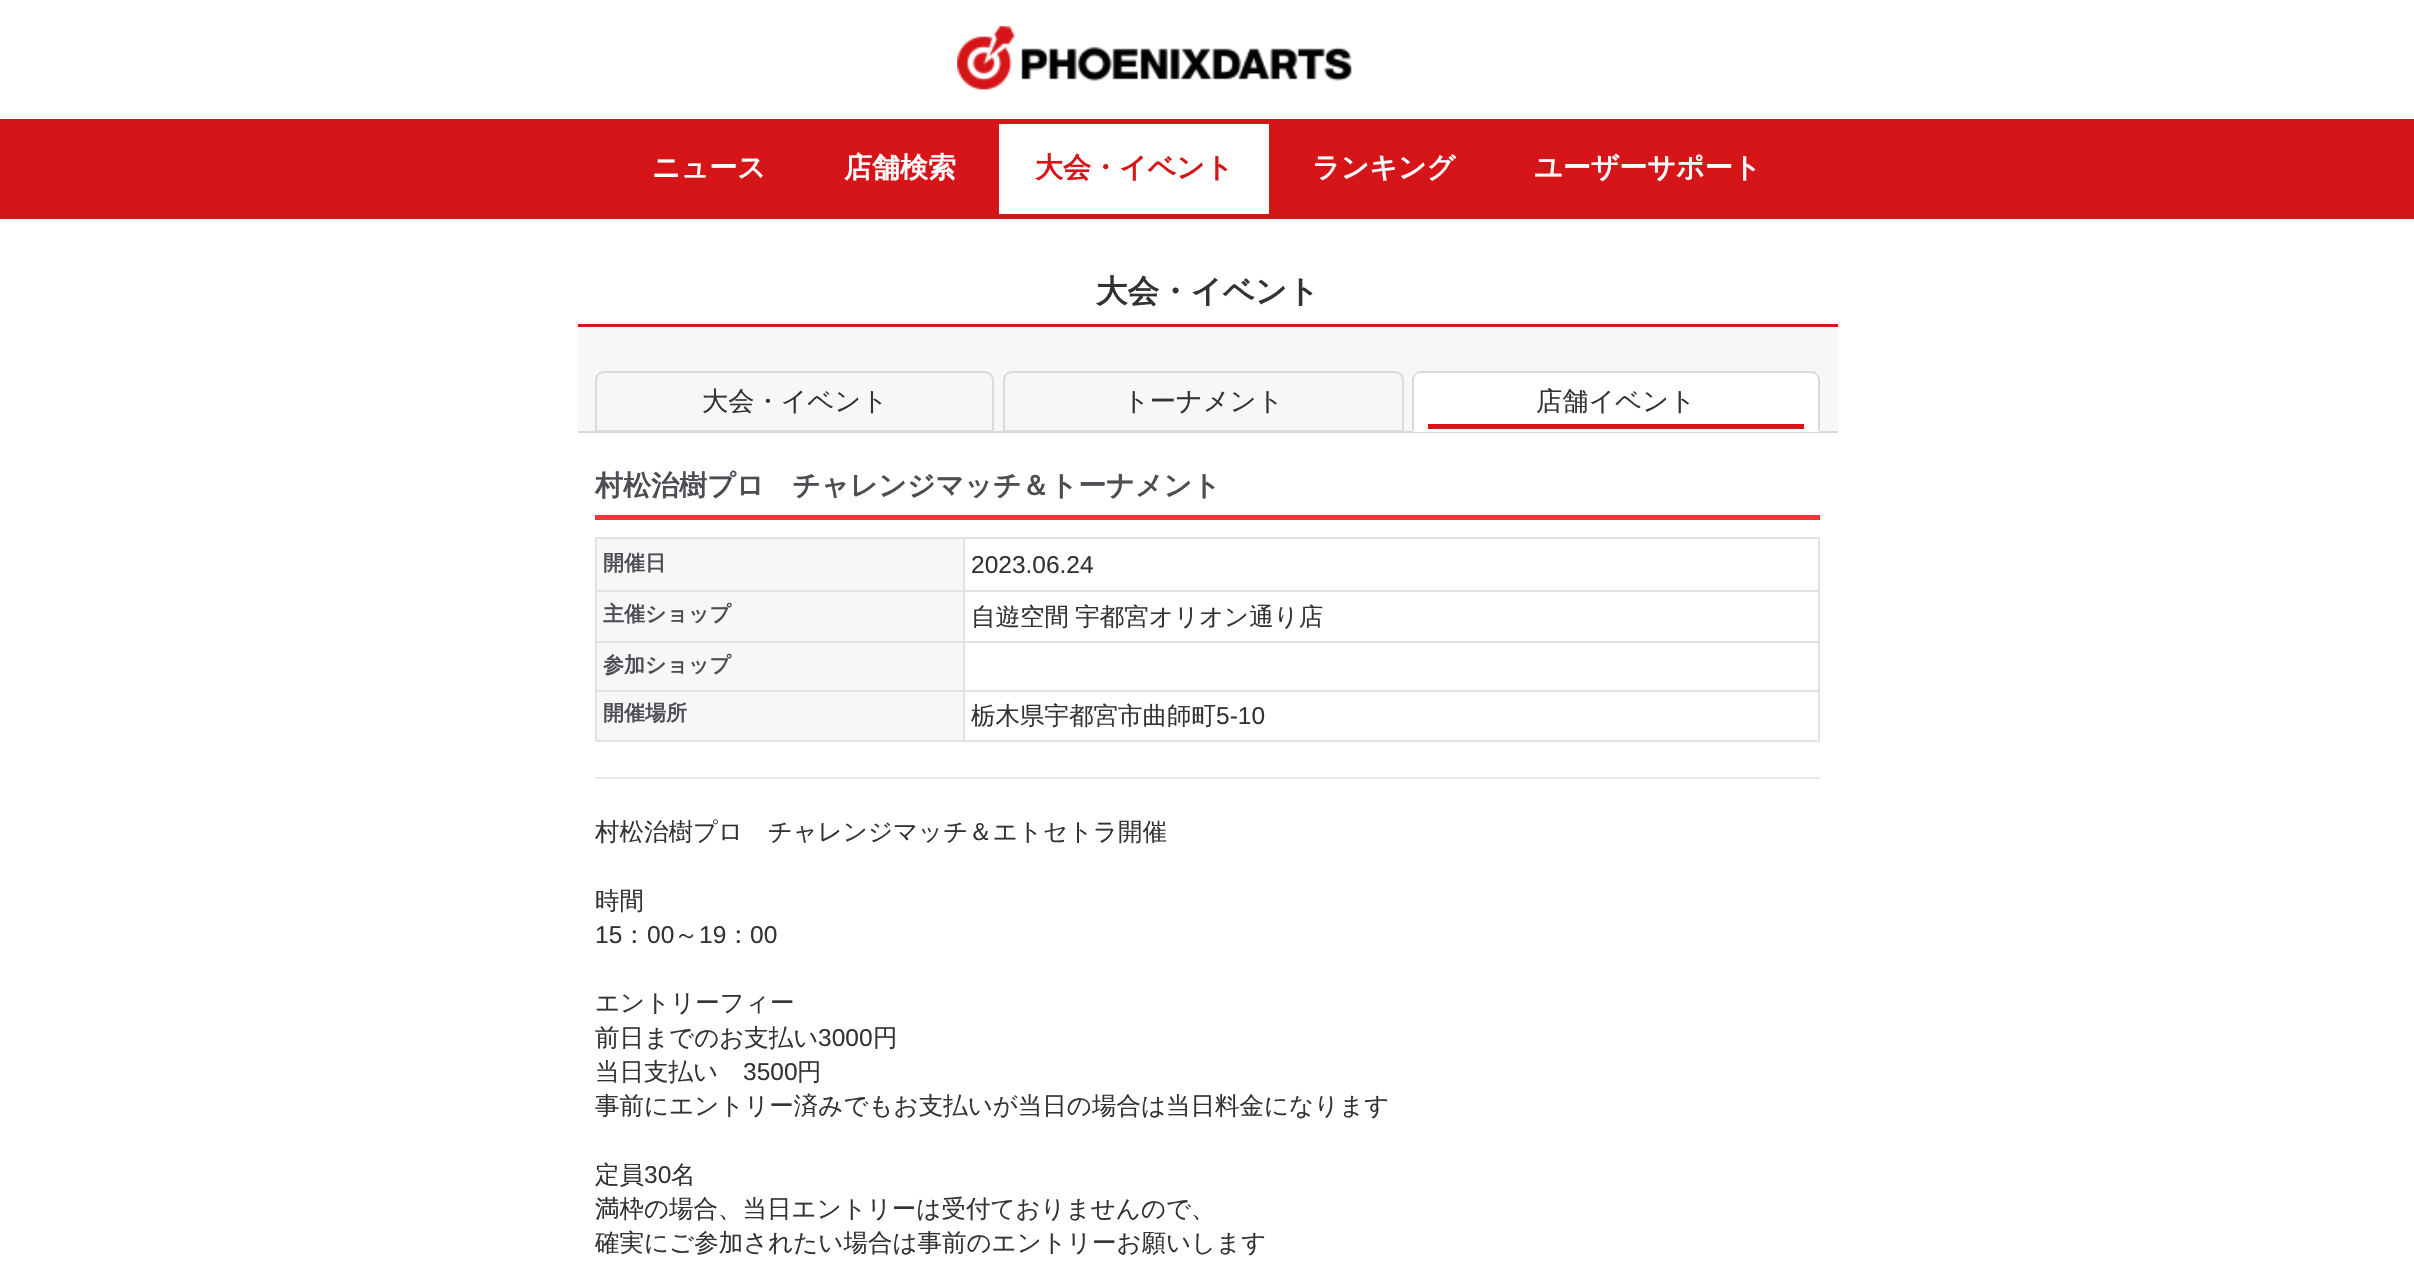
void draw(SkCanvas* canvas) {
  SkPaint paint;
  paint.setAntiAlias(true);
  auto face = [&](const char* family, int weight, float size, bool italic = false) {
    SkFontStyle style(weight, SkFontStyle::kNormal_Width,
      italic ? SkFontStyle::kItalic_Slant : SkFontStyle::kUpright_Slant);
    SkFont result(fontMgr->matchFamilyStyle(family, style), size);
    result.setSubpixel(true);
    return result;
  };
  auto writeSpaced = [&](const char* s, float x, float y, const SkFont& font, const SkPaint& ink, float letter, float word) {
    std::vector<SkGlyphID> glyphs(font.countText(s, strlen(s), SkTextEncoding::kUTF8));
    std::vector<float> xs(glyphs.size());
    font.textToGlyphs(s, strlen(s), SkTextEncoding::kUTF8, glyphs);
    font.getXPos(glyphs, xs, x);
    float extra = 0;
    for (size_t i = 0; i < glyphs.size(); i++) {
      xs[i] += extra;
      extra += letter + word * (glyphs[i] == font.unicharToGlyph(' '));
    }
    canvas->drawTextBlob(SkTextBlob::MakeFromPosHGlyphs(glyphs, xs, y, font), 0, 0, ink);
  };
  auto paste = [&](const char* path, float x, float y, float w, float h) {
    auto image = SkImages::DeferredFromEncodedData(SkData::MakeFromFileName(path));
    canvas->drawImageRect(image, SkRect::MakeXYWH(x, y, w, h), SkSamplingOptions());
  };
  auto shape = [&](const char* data, bool evenOdd = false) {
    SkPath result = *SkParsePath::FromSVGString(data);
    if (evenOdd) result.setFillType(SkPathFillType::kEvenOdd);
    return result;
  };
  canvas->clear(0xffffffff);
  paste("img/1.png", 957, 26, 395, 64);
  {
    const struct { float x, y, w, h; SkColor color; } items[] = {
      {0, 119, 2414, 100, 0xffd61518},
      {999, 124, 270, 90, 0xffffffff},
      {578, 324, 1260, 3, 0xffd61518},
      {578, 327, 1260, 104, 0xfff7f7f7},
      {578, 431, 1260, 2, 0xffdbd9d9},
    };
    for (auto [x, y, w, h, color] : items) {
      paint.setColor(color);
      canvas->drawRect(SkRect::MakeXYWH(x, y, w, h), paint);
    }
  }
  paint.setStroke(true);
  paint.setStrokeWidth(2);
  canvas->drawPath(shape("M604 372H985C989.5 372 993 375.5 993 380V431H596V380C596 375.5 599.5 372 604 372Z"), paint);
  canvas->drawPath(shape("M1012 372H1395C1399.5 372 1403 375.5 1403 380V431H1004V380C1004 375.5 1007.5 372 1012 372Z"), paint);
  paint.setStroke(false);
  paint.setColor(0xffffffff);
  canvas->drawPath(shape("M1421 371H1811C1816 371 1820 375 1820 380V432H1412V380C1412 375 1416 371 1421 371Z"), paint);
  paint.setColor(0xffdbd9d9);
  canvas->drawPath(shape("M1421 371C1419 371 1416 372 1415 374L1416 375C1417 374 1419 373 1421 373H1811C1813 373 1815 374 1816 375L1817 374C1816 372 1814 371 1811 371Z"), paint);
  canvas->drawPath(shape("M1820 432V380C1820 378 1819 375 1817 374L1816 375C1817 376 1818 378 1818 380V430Z"), paint);
  paint.setColor(0xffffffff);
  canvas->drawPath(shape("M1820 432H1412L1414 430H1818Z"), paint);
  paint.setColor(0xffdbd9d9);
  canvas->drawPath(shape("M1412 378C1413 376 1414 375 1415 374L1416 375C1415 376 1414 378 1414 380V430L1412 432Z"), paint);
  {
    const struct { float x, y, w, h; SkColor color; } items[] = {
      {1428, 424, 376, 5, 0xffd61518},
      {595, 515, 1225, 5, 0xfff43237},
      {595, 537, 1225, 2, 0xffe6e1e1},
      {1818, 537, 2, 205, 0xffe6e1e1},
      {597, 539, 366, 51, 0xfff7f7f7},
      {963, 740, 857, 2, 0xffe6e1e1},
      {963, 690, 2, 52, 0xffe6e1e1},
      {963, 690, 857, 2, 0xffe6e1e1},
      {963, 641, 2, 50, 0xffe6e1e1},
      {963, 641, 857, 2, 0xffe6e1e1},
      {963, 590, 2, 52, 0xffe6e1e1},
      {963, 590, 857, 2, 0xffe6e1e1},
      {963, 537, 2, 55, 0xffe6e1e1},
      {595, 740, 369, 2, 0xffe6e1e1},
      {595, 690, 2, 52, 0xffe6e1e1},
      {595, 690, 369, 2, 0xffe6e1e1},
      {595, 641, 2, 50, 0xffe6e1e1},
      {595, 641, 369, 2, 0xffe6e1e1},
      {595, 590, 2, 52, 0xffe6e1e1},
      {595, 590, 369, 2, 0xffe6e1e1},
      {595, 537, 2, 55, 0xffe6e1e1},
      {597, 592, 366, 49, 0xfff7f7f7},
      {597, 643, 366, 47, 0xfff7f7f7},
      {597, 692, 366, 48, 0xfff7f7f7},
      {595, 777, 1225, 2, 0xffe6e6e6},
    };
    for (auto [x, y, w, h, color] : items) {
      paint.setColor(color);
      canvas->drawRect(SkRect::MakeXYWH(x, y, w, h), paint);
    }
  }
  auto f0 = face("WenQuanYi Zen Hei", 700, 28);
  paint.setColor(0xffffffff);
  canvas->drawString("ニュース", 652, 177, f0, paint);
  canvas->drawString("店舗検索", 844, 177, f0, paint);
  paint.setColor(0xffd61518);
  canvas->drawString("大会・イベント", 1035, 177, f0, paint);
  paint.setColor(0xffffffff);
  canvas->drawString("ランキング", 1312, 177, f0, paint);
  canvas->drawString("ユーザーサポート", 1534, 177, f0, paint);
  auto f1 = face("WenQuanYi Zen Hei", 700, 31.5f);
  paint.setColor(0xff333333);
  canvas->drawString("大会・イベント", 1096, 302, f1, paint);
  auto f2 = face("WenQuanYi Zen Hei", 500, 26.25f);
  {
    const struct { const char* s; float x, y; } items[] = {
      {"大会・イベント", 702, 410},
      {"トーナメント", 1123, 410},
      {"店舗イベント", 1536, 410},
    };
    for (auto [s, x, y] : items) {
      canvas->drawString(s, x, y, f2, paint);
    }
  }
  paint.setColor(0xff4c4e54);
  canvas->drawString("村松治樹プロ　チャレンジマッチ＆トーナメント", 595, 495, f0, paint);
  auto f3 = face("WenQuanYi Zen Hei", 700, 21);
  canvas->drawString("開催日", 603, 570, f3, paint);
  auto f4 = face("Liberation Sans", 400, 24.5f);
  paint.setColor(0xff333333);
  canvas->drawString("2023.06.24", 971, 573, f4, paint);
  paint.setColor(0xff4c4e54);
  canvas->drawString("主催ショップ", 603, 621, f3, paint);
  auto f5 = face("WenQuanYi Zen Hei", 500, 24.5f);
  paint.setColor(0xff333333);
  writeSpaced("自遊空間 宇都宮オリオン通り店", 971, 625, f5, paint, 0, -1);
  paint.setColor(0xff4c4e54);
  canvas->drawString("参加ショップ", 603, 672, f3, paint);
  canvas->drawString("開催場所", 603, 720, f3, paint);
  paint.setColor(0xff333333);
  canvas->drawString("栃木県宇都宮市曲師町", 971, 724, f5, paint);
  canvas->drawString("5-10", 1216, 724, f4, paint);
  canvas->drawString("村松治樹プロ　チャレンジマッチ＆エトセトラ開催", 595, 840, f5, paint);
  canvas->drawString("時間", 595, 909, f5, paint);
  canvas->drawString("15", 595, 943, f4, paint);
  canvas->drawString("：", 622, 943, f5, paint);
  canvas->drawString("00", 647, 943, f4, paint);
  canvas->drawString("～", 674, 943, f5, paint);
  canvas->drawString("19", 699, 943, f4, paint);
  canvas->drawString("：", 726, 943, f5, paint);
  canvas->drawString("00", 750, 943, f4, paint);
  canvas->drawString("エントリーフィー", 595, 1011, f5, paint);
  canvas->drawString("前日までのお支払い", 595, 1046, f5, paint);
  canvas->drawString("3000", 818, 1046, f4, paint);
  canvas->drawString("円", 873, 1046, f5, paint);
  canvas->drawString("当日支払い", 595, 1080, f5, paint);
  canvas->drawString("3500", 743, 1080, f4, paint);
  {
    const struct { const char* s; float x, y; } items[] = {
      {"円", 797, 1080},
      {"事前にエントリー済みでもお支払いが当日の場合は当日料金になります", 595, 1114},
      {"定員", 595, 1183},
    };
    for (auto [s, x, y] : items) {
      canvas->drawString(s, x, y, f5, paint);
    }
  }
  canvas->drawString("30", 644, 1183, f4, paint);
  {
    const struct { const char* s; float x, y; } items[] = {
      {"名", 671, 1183},
      {"満枠の場合、当日エントリーは受付ておりませんので、", 595, 1217},
      {"確実にご参加されたい場合は事前のエントリーお願いします", 595, 1251},
    };
    for (auto [s, x, y] : items) {
      canvas->drawString(s, x, y, f5, paint);
    }
  }
}
